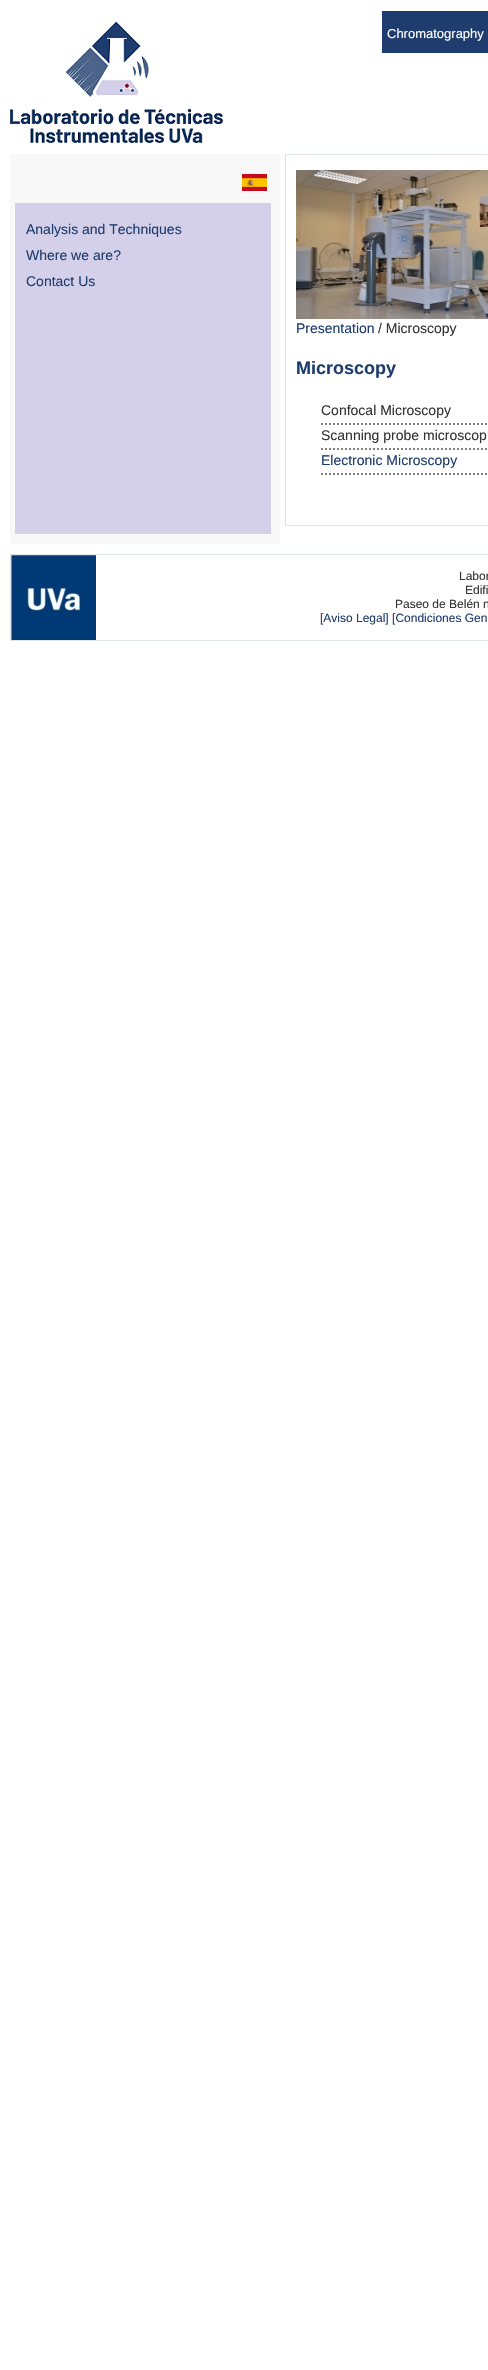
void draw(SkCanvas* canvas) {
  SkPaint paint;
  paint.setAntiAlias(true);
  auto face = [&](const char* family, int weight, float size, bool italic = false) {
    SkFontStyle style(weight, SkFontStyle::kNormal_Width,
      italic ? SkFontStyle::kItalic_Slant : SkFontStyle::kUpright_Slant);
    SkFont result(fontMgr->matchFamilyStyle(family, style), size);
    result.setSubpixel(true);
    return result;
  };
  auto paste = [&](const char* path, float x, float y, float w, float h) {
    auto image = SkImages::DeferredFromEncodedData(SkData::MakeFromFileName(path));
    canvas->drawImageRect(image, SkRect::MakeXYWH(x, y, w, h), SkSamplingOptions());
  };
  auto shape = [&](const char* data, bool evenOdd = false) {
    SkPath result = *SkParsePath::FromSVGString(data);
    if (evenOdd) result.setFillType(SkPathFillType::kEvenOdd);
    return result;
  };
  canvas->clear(0xffffffff);
  paste("img/1.png", 10, 21, 213, 122);
  paint.setColor(0xff1e3c6d);
  canvas->drawRect(SkRect::MakeXYWH(382, 11, 106, 42), paint);
  paint.setColor(0xfff8f8f8);
  canvas->drawRect(SkRect::MakeXYWH(10, 154, 270, 390), paint);
  paste("img/2.png", 242, 174, 25, 17);
  paint.setColor(0xffd5d0e9);
  canvas->drawRect(SkRect::MakeXYWH(15, 203, 256, 331), paint);
  paint.setStroke(true);
  paint.setStrokeWidth(1);
  paint.setColor(0xffdfe5e6);
  canvas->drawRect(SkRect::MakeXYWH(285.5f, 154.5f, 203, 371), paint);
  paste("img/3.png", 296, 170, 192, 149);
  paint.setStrokeWidth(2);
  paint.setColor(0xff808080);
  paint.setPathEffect(SkDashPathEffect::Make({{2, 2}}, 0));
  canvas->drawPath(shape("M321 424H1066"), paint);
  paint.setPathEffect(nullptr);
  paint.setPathEffect(SkDashPathEffect::Make({{2, 2}}, 0));
  canvas->drawPath(shape("M321 449H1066"), paint);
  paint.setPathEffect(nullptr);
  paint.setPathEffect(SkDashPathEffect::Make({{2, 2}}, 0));
  canvas->drawPath(shape("M321 474H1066"), paint);
  paint.setPathEffect(nullptr);
  paint.setStrokeWidth(1);
  paint.setColor(0xffdfe5e6);
  canvas->drawRect(SkRect::MakeXYWH(10.5f, 554.5f, 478, 86), paint);
  paste("img/4.png", 11, 555, 85, 85);
  auto f0 = face("Liberation Sans", 400, 13);
  paint.setStroke(false);
  paint.setColor(0xffffffff);
  canvas->drawString("Chromatography", 387, 38, f0, paint);
  auto f1 = face("Liberation Sans", 400, 14);
  paint.setColor(0xff1e3c6d);
  {
    const struct { const char* s; float x, y; } items[] = {
      {"Analysis and Techniques", 26, 234},
      {"Where we are?", 26, 260},
      {"Contact Us", 26, 286},
      {"Presentation", 296, 333},
    };
    for (auto [s, x, y] : items) {
      canvas->drawString(s, x, y, f1, paint);
    }
  }
  paint.setColor(0xff333333);
  canvas->drawString("/ Microscopy", 378, 333, f1, paint);
  auto f2 = face("Liberation Sans", 700, 18);
  paint.setColor(0xff1e3c6d);
  canvas->drawString("Microscopy", 296, 374, f2, paint);
  paint.setColor(0xff333333);
  canvas->drawString("Confocal Microscopy", 321, 415, f1, paint);
  canvas->drawString("Scanning probe microscop", 321, 440, f1, paint);
  paint.setColor(0xff1e3c6d);
  canvas->drawString("Electronic Microscopy", 321, 465, f1, paint);
  auto f3 = face("Liberation Sans", 400, 12);
  paint.setColor(0xff333333);
  {
    const struct { const char* s; float x, y; } items[] = {
      {"Labor", 459, 580},
      {"Edifi", 465, 594},
      {"Paseo de Belén n", 395, 608},
    };
    for (auto [s, x, y] : items) {
      canvas->drawString(s, x, y, f3, paint);
    }
  }
  paint.setColor(0xff1e3c6d);
  canvas->drawString("[Aviso Legal] [Condiciones Gen", 320, 622, f3, paint);
}
